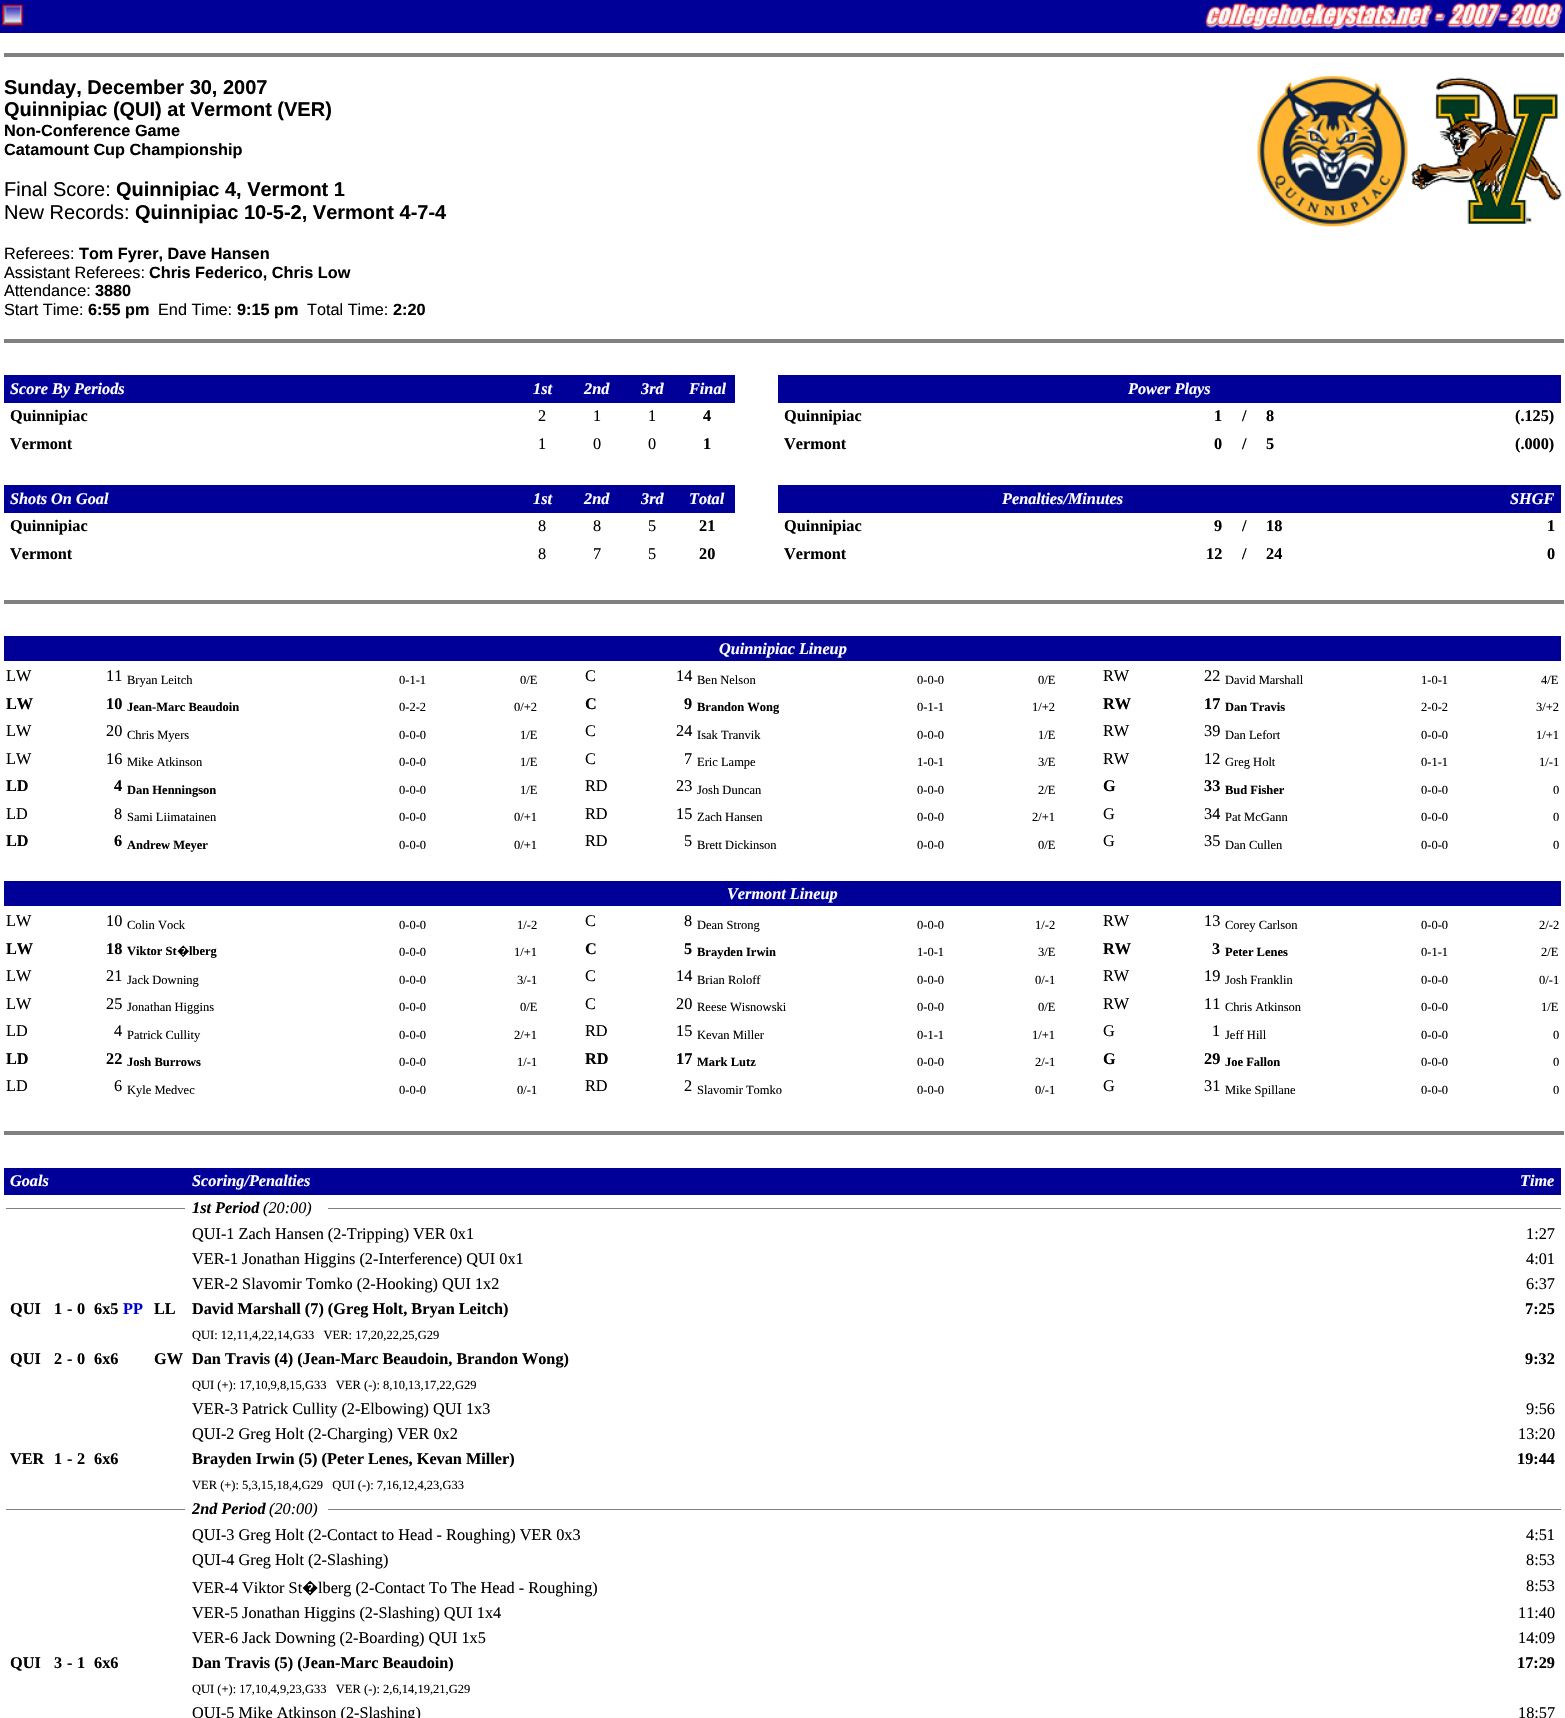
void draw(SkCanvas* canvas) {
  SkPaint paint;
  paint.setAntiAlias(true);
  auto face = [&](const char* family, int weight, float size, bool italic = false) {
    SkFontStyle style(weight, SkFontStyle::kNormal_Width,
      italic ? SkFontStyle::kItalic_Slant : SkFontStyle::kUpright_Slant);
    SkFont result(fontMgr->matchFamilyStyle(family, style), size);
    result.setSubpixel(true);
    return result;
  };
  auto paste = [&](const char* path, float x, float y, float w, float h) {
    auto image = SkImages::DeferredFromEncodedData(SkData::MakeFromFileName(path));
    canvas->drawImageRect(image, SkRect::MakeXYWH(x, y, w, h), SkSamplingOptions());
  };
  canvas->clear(0xffffffff);
  paint.setColor(0xff000099);
  canvas->drawRect(SkRect::MakeXYWH(0, 0, 1565, 33), paint);
  paste("img/1.png", 2, 4, 21, 22);
  paste("img/2.png", 1205, 2, 358, 28);
  paint.setColor(0xff808080);
  canvas->drawRect(SkRect::MakeXYWH(4, 53, 1560, 4), paint);
  paste("img/3.png", 1257, 76, 151, 151);
  paste("img/4.png", 1411, 77, 151, 147);
  {
    const struct { float x, y, w, h; SkColor color; } items[] = {
      {4, 339, 1560, 4, 0xff808080},
      {4, 375, 731, 28, 0xff000099},
      {778, 375, 783, 28, 0xff000099},
      {4, 485, 731, 28, 0xff000099},
      {778, 485, 783, 28, 0xff000099},
      {4, 600, 1560, 4, 0xff808080},
      {4, 636, 1557, 25, 0xff000099},
      {4, 881, 1557, 25, 0xff000099},
      {4, 1131, 1560, 4, 0xff808080},
      {4, 1168, 1557, 27, 0xff000099},
      {6, 1208, 179, 1, 0xff808080},
      {328, 1208, 1233, 1, 0xff808080},
      {6, 1509, 179, 1, 0xff808080},
      {328, 1509, 1233, 1, 0xff808080},
    };
    for (auto [x, y, w, h, color] : items) {
      paint.setColor(color);
      canvas->drawRect(SkRect::MakeXYWH(x, y, w, h), paint);
    }
  }
  auto f0 = face("Liberation Sans", 700, 20);
  paint.setColor(0xff000000);
  canvas->drawString("Sunday, December 30, 2007", 4, 94, f0, paint);
  canvas->drawString("Quinnipiac (QUI) at Vermont (VER)", 4, 116, f0, paint);
  auto f1 = face("Liberation Sans", 700, 16.25f);
  canvas->drawString("Non-Conference Game", 4, 136, f1, paint);
  canvas->drawString("Catamount Cup Championship", 4, 155, f1, paint);
  auto f2 = face("Liberation Sans", 400, 20);
  canvas->drawString("Final Score:", 4, 196, f2, paint);
  canvas->drawString("Quinnipiac 4, Vermont 1", 116, 196, f0, paint);
  canvas->drawString("New Records:", 4, 219, f2, paint);
  canvas->drawString("Quinnipiac 10-5-2, Vermont 4-7-4", 135, 219, f0, paint);
  auto f3 = face("Liberation Sans", 400, 16.25f);
  canvas->drawString("Referees:", 4, 259, f3, paint);
  canvas->drawString("Tom Fyrer, Dave Hansen", 79, 259, f1, paint);
  canvas->drawString("Assistant Referees:", 4, 278, f3, paint);
  canvas->drawString("Chris Federico, Chris Low", 149, 278, f1, paint);
  canvas->drawString("Attendance:", 4, 296, f3, paint);
  canvas->drawString("3880", 95, 296, f1, paint);
  canvas->drawString("Start Time:", 4, 315, f3, paint);
  canvas->drawString("6:55 pm", 88, 315, f1, paint);
  canvas->drawString("End Time:", 158, 315, f3, paint);
  canvas->drawString("9:15 pm", 237, 315, f1, paint);
  canvas->drawString("Total Time:", 307, 315, f3, paint);
  canvas->drawString("2:20", 393, 315, f1, paint);
  auto f4 = face("Liberation Serif", 700, 16.25f, true);
  paint.setColor(0xfffefefe);
  {
    const struct { const char* s; float x, y; } items[] = {
      {"Score By Periods", 10, 394},
      {"1st", 533, 394},
      {"2nd", 584, 394},
      {"3rd", 641, 394},
      {"Final", 689, 394},
      {"Power Plays", 1128, 394},
    };
    for (auto [s, x, y] : items) {
      canvas->drawString(s, x, y, f4, paint);
    }
  }
  auto f5 = face("Liberation Serif", 700, 16.25f);
  paint.setColor(0xff000000);
  canvas->drawString("Quinnipiac", 10, 421, f5, paint);
  auto f6 = face("Liberation Serif", 400, 16.25f);
  {
    const struct { const char* s; float x, y; } items[] = {
      {"2", 538, 421},
      {"1", 593, 421},
      {"1", 648, 421},
    };
    for (auto [s, x, y] : items) {
      canvas->drawString(s, x, y, f6, paint);
    }
  }
  {
    const struct { const char* s; float x, y; } items[] = {
      {"4", 703, 421},
      {"Quinnipiac", 784, 421},
      {"1", 1214, 421},
      {"/", 1242, 421},
      {"8", 1266, 421},
      {"(.125)", 1515, 421},
      {"Vermont", 10, 449},
    };
    for (auto [s, x, y] : items) {
      canvas->drawString(s, x, y, f5, paint);
    }
  }
  {
    const struct { const char* s; float x, y; } items[] = {
      {"1", 538, 449},
      {"0", 593, 449},
      {"0", 648, 449},
    };
    for (auto [s, x, y] : items) {
      canvas->drawString(s, x, y, f6, paint);
    }
  }
  {
    const struct { const char* s; float x, y; } items[] = {
      {"1", 703, 449},
      {"Vermont", 784, 449},
      {"0", 1214, 449},
      {"/", 1242, 449},
      {"5", 1266, 449},
      {"(.000)", 1515, 449},
    };
    for (auto [s, x, y] : items) {
      canvas->drawString(s, x, y, f5, paint);
    }
  }
  paint.setColor(0xfffefefe);
  {
    const struct { const char* s; float x, y; } items[] = {
      {"Shots On Goal", 10, 504},
      {"1st", 533, 504},
      {"2nd", 584, 504},
      {"3rd", 641, 504},
      {"Total", 689, 504},
      {"Penalties/Minutes", 1002, 504},
      {"SHGF", 1510, 504},
    };
    for (auto [s, x, y] : items) {
      canvas->drawString(s, x, y, f4, paint);
    }
  }
  paint.setColor(0xff000000);
  canvas->drawString("Quinnipiac", 10, 531, f5, paint);
  {
    const struct { const char* s; float x, y; } items[] = {
      {"8", 538, 531},
      {"8", 593, 531},
      {"5", 648, 531},
    };
    for (auto [s, x, y] : items) {
      canvas->drawString(s, x, y, f6, paint);
    }
  }
  {
    const struct { const char* s; float x, y; } items[] = {
      {"21", 699, 531},
      {"Quinnipiac", 784, 531},
      {"9", 1214, 531},
      {"/", 1242, 531},
      {"18", 1266, 531},
      {"1", 1547, 531},
      {"Vermont", 10, 559},
    };
    for (auto [s, x, y] : items) {
      canvas->drawString(s, x, y, f5, paint);
    }
  }
  {
    const struct { const char* s; float x, y; } items[] = {
      {"8", 538, 559},
      {"7", 593, 559},
      {"5", 648, 559},
    };
    for (auto [s, x, y] : items) {
      canvas->drawString(s, x, y, f6, paint);
    }
  }
  {
    const struct { const char* s; float x, y; } items[] = {
      {"20", 699, 559},
      {"Vermont", 784, 559},
      {"12", 1206, 559},
      {"/", 1242, 559},
      {"24", 1266, 559},
      {"0", 1547, 559},
    };
    for (auto [s, x, y] : items) {
      canvas->drawString(s, x, y, f5, paint);
    }
  }
  paint.setColor(0xfffefefe);
  canvas->drawString("Quinnipiac Lineup", 719, 654, f4, paint);
  paint.setColor(0xff000000);
  canvas->drawString("LW", 6, 681, f6, paint);
  canvas->drawString("11", 106, 681, f6, paint);
  auto f7 = face("Liberation Serif", 400, 12.5f);
  {
    const struct { const char* s; float x, y; } items[] = {
      {"Bryan Leitch", 127, 684},
      {"0-1-1", 399, 684},
      {"0/E", 520, 684},
    };
    for (auto [s, x, y] : items) {
      canvas->drawString(s, x, y, f7, paint);
    }
  }
  canvas->drawString("C", 585, 681, f6, paint);
  canvas->drawString("14", 676, 681, f6, paint);
  {
    const struct { const char* s; float x, y; } items[] = {
      {"Ben Nelson", 697, 684},
      {"0-0-0", 917, 684},
      {"0/E", 1038, 684},
    };
    for (auto [s, x, y] : items) {
      canvas->drawString(s, x, y, f7, paint);
    }
  }
  canvas->drawString("RW", 1103, 681, f6, paint);
  canvas->drawString("22", 1204, 681, f6, paint);
  {
    const struct { const char* s; float x, y; } items[] = {
      {"David Marshall", 1225, 684},
      {"1-0-1", 1421, 684},
      {"4/E", 1541, 684},
    };
    for (auto [s, x, y] : items) {
      canvas->drawString(s, x, y, f7, paint);
    }
  }
  canvas->drawString("LW", 6, 709, f5, paint);
  canvas->drawString("10", 106, 709, f5, paint);
  auto f8 = face("Liberation Serif", 700, 12.5f);
  canvas->drawString("Jean-Marc Beaudoin", 127, 711, f8, paint);
  canvas->drawString("0-2-2", 399, 711, f7, paint);
  canvas->drawString("0/+2", 514, 711, f7, paint);
  canvas->drawString("C", 585, 709, f5, paint);
  canvas->drawString("9", 684, 709, f5, paint);
  canvas->drawString("Brandon Wong", 697, 711, f8, paint);
  canvas->drawString("0-1-1", 917, 711, f7, paint);
  canvas->drawString("1/+2", 1032, 711, f7, paint);
  canvas->drawString("RW", 1103, 709, f5, paint);
  canvas->drawString("17", 1204, 709, f5, paint);
  canvas->drawString("Dan Travis", 1225, 711, f8, paint);
  canvas->drawString("2-0-2", 1421, 711, f7, paint);
  canvas->drawString("3/+2", 1536, 711, f7, paint);
  canvas->drawString("LW", 6, 736, f6, paint);
  canvas->drawString("20", 106, 736, f6, paint);
  {
    const struct { const char* s; float x, y; } items[] = {
      {"Chris Myers", 127, 739},
      {"0-0-0", 399, 739},
      {"1/E", 520, 739},
    };
    for (auto [s, x, y] : items) {
      canvas->drawString(s, x, y, f7, paint);
    }
  }
  canvas->drawString("C", 585, 736, f6, paint);
  canvas->drawString("24", 676, 736, f6, paint);
  {
    const struct { const char* s; float x, y; } items[] = {
      {"Isak Tranvik", 697, 739},
      {"0-0-0", 917, 739},
      {"1/E", 1038, 739},
    };
    for (auto [s, x, y] : items) {
      canvas->drawString(s, x, y, f7, paint);
    }
  }
  canvas->drawString("RW", 1103, 736, f6, paint);
  canvas->drawString("39", 1204, 736, f6, paint);
  {
    const struct { const char* s; float x, y; } items[] = {
      {"Dan Lefort", 1225, 739},
      {"0-0-0", 1421, 739},
      {"1/+1", 1536, 739},
    };
    for (auto [s, x, y] : items) {
      canvas->drawString(s, x, y, f7, paint);
    }
  }
  canvas->drawString("LW", 6, 764, f6, paint);
  canvas->drawString("16", 106, 764, f6, paint);
  {
    const struct { const char* s; float x, y; } items[] = {
      {"Mike Atkinson", 127, 766},
      {"0-0-0", 399, 766},
      {"1/E", 520, 766},
    };
    for (auto [s, x, y] : items) {
      canvas->drawString(s, x, y, f7, paint);
    }
  }
  canvas->drawString("C", 585, 764, f6, paint);
  canvas->drawString("7", 684, 764, f6, paint);
  {
    const struct { const char* s; float x, y; } items[] = {
      {"Eric Lampe", 697, 766},
      {"1-0-1", 917, 766},
      {"3/E", 1038, 766},
    };
    for (auto [s, x, y] : items) {
      canvas->drawString(s, x, y, f7, paint);
    }
  }
  canvas->drawString("RW", 1103, 764, f6, paint);
  canvas->drawString("12", 1204, 764, f6, paint);
  {
    const struct { const char* s; float x, y; } items[] = {
      {"Greg Holt", 1225, 766},
      {"0-1-1", 1421, 766},
      {"1/-1", 1539, 766},
    };
    for (auto [s, x, y] : items) {
      canvas->drawString(s, x, y, f7, paint);
    }
  }
  canvas->drawString("LD", 6, 791, f5, paint);
  canvas->drawString("4", 114, 791, f5, paint);
  canvas->drawString("Dan Henningson", 127, 794, f8, paint);
  canvas->drawString("0-0-0", 399, 794, f7, paint);
  canvas->drawString("1/E", 520, 794, f7, paint);
  canvas->drawString("RD", 585, 791, f6, paint);
  canvas->drawString("23", 676, 791, f6, paint);
  {
    const struct { const char* s; float x, y; } items[] = {
      {"Josh Duncan", 697, 794},
      {"0-0-0", 917, 794},
      {"2/E", 1038, 794},
    };
    for (auto [s, x, y] : items) {
      canvas->drawString(s, x, y, f7, paint);
    }
  }
  canvas->drawString("G", 1103, 791, f5, paint);
  canvas->drawString("33", 1204, 791, f5, paint);
  canvas->drawString("Bud Fisher", 1225, 794, f8, paint);
  canvas->drawString("0-0-0", 1421, 794, f7, paint);
  canvas->drawString("0", 1553, 794, f7, paint);
  canvas->drawString("LD", 6, 819, f6, paint);
  canvas->drawString("8", 114, 819, f6, paint);
  {
    const struct { const char* s; float x, y; } items[] = {
      {"Sami Liimatainen", 127, 821},
      {"0-0-0", 399, 821},
      {"0/+1", 514, 821},
    };
    for (auto [s, x, y] : items) {
      canvas->drawString(s, x, y, f7, paint);
    }
  }
  canvas->drawString("RD", 585, 819, f6, paint);
  canvas->drawString("15", 676, 819, f6, paint);
  {
    const struct { const char* s; float x, y; } items[] = {
      {"Zach Hansen", 697, 821},
      {"0-0-0", 917, 821},
      {"2/+1", 1032, 821},
    };
    for (auto [s, x, y] : items) {
      canvas->drawString(s, x, y, f7, paint);
    }
  }
  canvas->drawString("G", 1103, 819, f6, paint);
  canvas->drawString("34", 1204, 819, f6, paint);
  {
    const struct { const char* s; float x, y; } items[] = {
      {"Pat McGann", 1225, 821},
      {"0-0-0", 1421, 821},
      {"0", 1553, 821},
    };
    for (auto [s, x, y] : items) {
      canvas->drawString(s, x, y, f7, paint);
    }
  }
  canvas->drawString("LD", 6, 846, f5, paint);
  canvas->drawString("6", 114, 846, f5, paint);
  canvas->drawString("Andrew Meyer", 127, 849, f8, paint);
  canvas->drawString("0-0-0", 399, 849, f7, paint);
  canvas->drawString("0/+1", 514, 849, f7, paint);
  canvas->drawString("RD", 585, 846, f6, paint);
  canvas->drawString("5", 684, 846, f6, paint);
  {
    const struct { const char* s; float x, y; } items[] = {
      {"Brett Dickinson", 697, 849},
      {"0-0-0", 917, 849},
      {"0/E", 1038, 849},
    };
    for (auto [s, x, y] : items) {
      canvas->drawString(s, x, y, f7, paint);
    }
  }
  canvas->drawString("G", 1103, 846, f6, paint);
  canvas->drawString("35", 1204, 846, f6, paint);
  {
    const struct { const char* s; float x, y; } items[] = {
      {"Dan Cullen", 1225, 849},
      {"0-0-0", 1421, 849},
      {"0", 1553, 849},
    };
    for (auto [s, x, y] : items) {
      canvas->drawString(s, x, y, f7, paint);
    }
  }
  paint.setColor(0xfffefefe);
  canvas->drawString("Vermont Lineup", 727, 899, f4, paint);
  paint.setColor(0xff000000);
  canvas->drawString("LW", 6, 926, f6, paint);
  canvas->drawString("10", 106, 926, f6, paint);
  {
    const struct { const char* s; float x, y; } items[] = {
      {"Colin Vock", 127, 929},
      {"0-0-0", 399, 929},
      {"1/-2", 517, 929},
    };
    for (auto [s, x, y] : items) {
      canvas->drawString(s, x, y, f7, paint);
    }
  }
  canvas->drawString("C", 585, 926, f6, paint);
  canvas->drawString("8", 684, 926, f6, paint);
  {
    const struct { const char* s; float x, y; } items[] = {
      {"Dean Strong", 697, 929},
      {"0-0-0", 917, 929},
      {"1/-2", 1035, 929},
    };
    for (auto [s, x, y] : items) {
      canvas->drawString(s, x, y, f7, paint);
    }
  }
  canvas->drawString("RW", 1103, 926, f6, paint);
  canvas->drawString("13", 1204, 926, f6, paint);
  {
    const struct { const char* s; float x, y; } items[] = {
      {"Corey Carlson", 1225, 929},
      {"0-0-0", 1421, 929},
      {"2/-2", 1539, 929},
    };
    for (auto [s, x, y] : items) {
      canvas->drawString(s, x, y, f7, paint);
    }
  }
  canvas->drawString("LW", 6, 954, f5, paint);
  canvas->drawString("18", 106, 954, f5, paint);
  canvas->drawString("Viktor St", 127, 955, f8, paint);
  auto f9 = face("Noto Sans", 700, 12.5f);
  canvas->drawString("�", 177, 955, f9, paint);
  canvas->drawString("lberg", 189, 955, f8, paint);
  canvas->drawString("0-0-0", 399, 956, f7, paint);
  canvas->drawString("1/+1", 514, 956, f7, paint);
  canvas->drawString("C", 585, 954, f5, paint);
  canvas->drawString("5", 684, 954, f5, paint);
  canvas->drawString("Brayden Irwin", 697, 956, f8, paint);
  canvas->drawString("1-0-1", 917, 956, f7, paint);
  canvas->drawString("3/E", 1038, 956, f7, paint);
  canvas->drawString("RW", 1103, 954, f5, paint);
  canvas->drawString("3", 1212, 954, f5, paint);
  canvas->drawString("Peter Lenes", 1225, 956, f8, paint);
  canvas->drawString("0-1-1", 1421, 956, f7, paint);
  canvas->drawString("2/E", 1541, 956, f7, paint);
  canvas->drawString("LW", 6, 981, f6, paint);
  canvas->drawString("21", 106, 981, f6, paint);
  {
    const struct { const char* s; float x, y; } items[] = {
      {"Jack Downing", 127, 984},
      {"0-0-0", 399, 984},
      {"3/-1", 517, 984},
    };
    for (auto [s, x, y] : items) {
      canvas->drawString(s, x, y, f7, paint);
    }
  }
  canvas->drawString("C", 585, 981, f6, paint);
  canvas->drawString("14", 676, 981, f6, paint);
  {
    const struct { const char* s; float x, y; } items[] = {
      {"Brian Roloff", 697, 984},
      {"0-0-0", 917, 984},
      {"0/-1", 1035, 984},
    };
    for (auto [s, x, y] : items) {
      canvas->drawString(s, x, y, f7, paint);
    }
  }
  canvas->drawString("RW", 1103, 981, f6, paint);
  canvas->drawString("19", 1204, 981, f6, paint);
  {
    const struct { const char* s; float x, y; } items[] = {
      {"Josh Franklin", 1225, 984},
      {"0-0-0", 1421, 984},
      {"0/-1", 1539, 984},
    };
    for (auto [s, x, y] : items) {
      canvas->drawString(s, x, y, f7, paint);
    }
  }
  canvas->drawString("LW", 6, 1009, f6, paint);
  canvas->drawString("25", 106, 1009, f6, paint);
  {
    const struct { const char* s; float x, y; } items[] = {
      {"Jonathan Higgins", 127, 1011},
      {"0-0-0", 399, 1011},
      {"0/E", 520, 1011},
    };
    for (auto [s, x, y] : items) {
      canvas->drawString(s, x, y, f7, paint);
    }
  }
  canvas->drawString("C", 585, 1009, f6, paint);
  canvas->drawString("20", 676, 1009, f6, paint);
  {
    const struct { const char* s; float x, y; } items[] = {
      {"Reese Wisnowski", 697, 1011},
      {"0-0-0", 917, 1011},
      {"0/E", 1038, 1011},
    };
    for (auto [s, x, y] : items) {
      canvas->drawString(s, x, y, f7, paint);
    }
  }
  canvas->drawString("RW", 1103, 1009, f6, paint);
  canvas->drawString("11", 1204, 1009, f6, paint);
  {
    const struct { const char* s; float x, y; } items[] = {
      {"Chris Atkinson", 1225, 1011},
      {"0-0-0", 1421, 1011},
      {"1/E", 1541, 1011},
    };
    for (auto [s, x, y] : items) {
      canvas->drawString(s, x, y, f7, paint);
    }
  }
  canvas->drawString("LD", 6, 1036, f6, paint);
  canvas->drawString("4", 114, 1036, f6, paint);
  {
    const struct { const char* s; float x, y; } items[] = {
      {"Patrick Cullity", 127, 1039},
      {"0-0-0", 399, 1039},
      {"2/+1", 514, 1039},
    };
    for (auto [s, x, y] : items) {
      canvas->drawString(s, x, y, f7, paint);
    }
  }
  canvas->drawString("RD", 585, 1036, f6, paint);
  canvas->drawString("15", 676, 1036, f6, paint);
  {
    const struct { const char* s; float x, y; } items[] = {
      {"Kevan Miller", 697, 1039},
      {"0-1-1", 917, 1039},
      {"1/+1", 1032, 1039},
    };
    for (auto [s, x, y] : items) {
      canvas->drawString(s, x, y, f7, paint);
    }
  }
  canvas->drawString("G", 1103, 1036, f6, paint);
  canvas->drawString("1", 1212, 1036, f6, paint);
  {
    const struct { const char* s; float x, y; } items[] = {
      {"Jeff Hill", 1225, 1039},
      {"0-0-0", 1421, 1039},
      {"0", 1553, 1039},
    };
    for (auto [s, x, y] : items) {
      canvas->drawString(s, x, y, f7, paint);
    }
  }
  canvas->drawString("LD", 6, 1064, f5, paint);
  canvas->drawString("22", 106, 1064, f5, paint);
  canvas->drawString("Josh Burrows", 127, 1066, f8, paint);
  canvas->drawString("0-0-0", 399, 1066, f7, paint);
  canvas->drawString("1/-1", 517, 1066, f7, paint);
  canvas->drawString("RD", 585, 1064, f5, paint);
  canvas->drawString("17", 676, 1064, f5, paint);
  canvas->drawString("Mark Lutz", 697, 1066, f8, paint);
  canvas->drawString("0-0-0", 917, 1066, f7, paint);
  canvas->drawString("2/-1", 1035, 1066, f7, paint);
  canvas->drawString("G", 1103, 1064, f5, paint);
  canvas->drawString("29", 1204, 1064, f5, paint);
  canvas->drawString("Joe Fallon", 1225, 1066, f8, paint);
  canvas->drawString("0-0-0", 1421, 1066, f7, paint);
  canvas->drawString("0", 1553, 1066, f7, paint);
  canvas->drawString("LD", 6, 1091, f6, paint);
  canvas->drawString("6", 114, 1091, f6, paint);
  {
    const struct { const char* s; float x, y; } items[] = {
      {"Kyle Medvec", 127, 1094},
      {"0-0-0", 399, 1094},
      {"0/-1", 517, 1094},
    };
    for (auto [s, x, y] : items) {
      canvas->drawString(s, x, y, f7, paint);
    }
  }
  canvas->drawString("RD", 585, 1091, f6, paint);
  canvas->drawString("2", 684, 1091, f6, paint);
  {
    const struct { const char* s; float x, y; } items[] = {
      {"Slavomir Tomko", 697, 1094},
      {"0-0-0", 917, 1094},
      {"0/-1", 1035, 1094},
    };
    for (auto [s, x, y] : items) {
      canvas->drawString(s, x, y, f7, paint);
    }
  }
  canvas->drawString("G", 1103, 1091, f6, paint);
  canvas->drawString("31", 1204, 1091, f6, paint);
  {
    const struct { const char* s; float x, y; } items[] = {
      {"Mike Spillane", 1225, 1094},
      {"0-0-0", 1421, 1094},
      {"0", 1553, 1094},
    };
    for (auto [s, x, y] : items) {
      canvas->drawString(s, x, y, f7, paint);
    }
  }
  paint.setColor(0xfffefefe);
  {
    const struct { const char* s; float x, y; } items[] = {
      {"Goals", 10, 1186},
      {"Scoring/Penalties", 192, 1186},
      {"Time", 1520, 1186},
    };
    for (auto [s, x, y] : items) {
      canvas->drawString(s, x, y, f4, paint);
    }
  }
  paint.setColor(0xff000000);
  canvas->drawString("1st Period", 192, 1213, f4, paint);
  auto f10 = face("Liberation Serif", 400, 16.25f, true);
  canvas->drawString("(20:00)", 263, 1213, f10, paint);
  {
    const struct { const char* s; float x, y; } items[] = {
      {"QUI-1 Zach Hansen (2-Tripping) VER 0x1", 192, 1239},
      {"1:27", 1526, 1239},
      {"VER-1 Jonathan Higgins (2-Interference) QUI 0x1", 192, 1264},
      {"4:01", 1526, 1264},
      {"VER-2 Slavomir Tomko (2-Hooking) QUI 1x2", 192, 1289},
      {"6:37", 1526, 1289},
    };
    for (auto [s, x, y] : items) {
      canvas->drawString(s, x, y, f6, paint);
    }
  }
  {
    const struct { const char* s; float x, y; } items[] = {
      {"QUI", 10, 1314},
      {"1", 54, 1314},
      {"-", 67, 1314},
      {"0", 77, 1314},
      {"6x5", 94, 1314},
    };
    for (auto [s, x, y] : items) {
      canvas->drawString(s, x, y, f5, paint);
    }
  }
  paint.setColor(0xff0000cc);
  canvas->drawString("PP", 123, 1314, f5, paint);
  paint.setColor(0xff000000);
  {
    const struct { const char* s; float x, y; } items[] = {
      {"LL", 154, 1314},
      {"David Marshall (7) (Greg Holt, Bryan Leitch)", 192, 1314},
      {"7:25", 1525, 1314},
    };
    for (auto [s, x, y] : items) {
      canvas->drawString(s, x, y, f5, paint);
    }
  }
  canvas->drawString("QUI: 12,11,4,22,14,G33   VER: 17,20,22,25,G29", 192, 1339, f7, paint);
  {
    const struct { const char* s; float x, y; } items[] = {
      {"QUI", 10, 1364},
      {"2", 54, 1364},
      {"-", 67, 1364},
      {"0", 77, 1364},
      {"6x6", 94, 1364},
      {"GW", 154, 1364},
      {"Dan Travis (4) (Jean-Marc Beaudoin, Brandon Wong)", 192, 1364},
      {"9:32", 1525, 1364},
    };
    for (auto [s, x, y] : items) {
      canvas->drawString(s, x, y, f5, paint);
    }
  }
  canvas->drawString("QUI (+): 17,10,9,8,15,G33   VER (-): 8,10,13,17,22,G29", 192, 1389, f7, paint);
  {
    const struct { const char* s; float x, y; } items[] = {
      {"VER-3 Patrick Cullity (2-Elbowing) QUI 1x3", 192, 1414},
      {"9:56", 1526, 1414},
      {"QUI-2 Greg Holt (2-Charging) VER 0x2", 192, 1439},
      {"13:20", 1518, 1439},
    };
    for (auto [s, x, y] : items) {
      canvas->drawString(s, x, y, f6, paint);
    }
  }
  {
    const struct { const char* s; float x, y; } items[] = {
      {"VER", 10, 1464},
      {"1", 54, 1464},
      {"-", 67, 1464},
      {"2", 77, 1464},
      {"6x6", 94, 1464},
      {"Brayden Irwin (5) (Peter Lenes, Kevan Miller)", 192, 1464},
      {"19:44", 1517, 1464},
    };
    for (auto [s, x, y] : items) {
      canvas->drawString(s, x, y, f5, paint);
    }
  }
  canvas->drawString("VER (+): 5,3,15,18,4,G29   QUI (-): 7,16,12,4,23,G33", 192, 1489, f7, paint);
  canvas->drawString("2nd Period", 192, 1514, f4, paint);
  canvas->drawString("(20:00)", 269, 1514, f10, paint);
  {
    const struct { const char* s; float x, y; } items[] = {
      {"QUI-3 Greg Holt (2-Contact to Head - Roughing) VER 0x3", 192, 1540},
      {"4:51", 1526, 1540},
      {"QUI-4 Greg Holt (2-Slashing)", 192, 1565},
      {"8:53", 1526, 1565},
      {"VER-4 Viktor St", 192, 1593},
    };
    for (auto [s, x, y] : items) {
      canvas->drawString(s, x, y, f6, paint);
    }
  }
  auto f11 = face("Noto Sans", 400, 16.25f);
  canvas->drawString("�", 302, 1593, f11, paint);
  {
    const struct { const char* s; float x, y; } items[] = {
      {"lberg (2-Contact To The Head - Roughing)", 318, 1593},
      {"8:53", 1526, 1591},
      {"VER-5 Jonathan Higgins (2-Slashing) QUI 1x4", 192, 1618},
      {"11:40", 1518, 1618},
      {"VER-6 Jack Downing (2-Boarding) QUI 1x5", 192, 1643},
      {"14:09", 1518, 1643},
    };
    for (auto [s, x, y] : items) {
      canvas->drawString(s, x, y, f6, paint);
    }
  }
  {
    const struct { const char* s; float x, y; } items[] = {
      {"QUI", 10, 1668},
      {"3", 54, 1668},
      {"-", 67, 1668},
      {"1", 77, 1668},
      {"6x6", 94, 1668},
      {"Dan Travis (5) (Jean-Marc Beaudoin)", 192, 1668},
      {"17:29", 1517, 1668},
    };
    for (auto [s, x, y] : items) {
      canvas->drawString(s, x, y, f5, paint);
    }
  }
  canvas->drawString("QUI (+): 17,10,4,9,23,G33   VER (-): 2,6,14,19,21,G29", 192, 1693, f7, paint);
  canvas->drawString("QUI-5 Mike Atkinson (2-Slashing)", 192, 1718, f6, paint);
  canvas->drawString("18:57", 1518, 1718, f6, paint);
}
